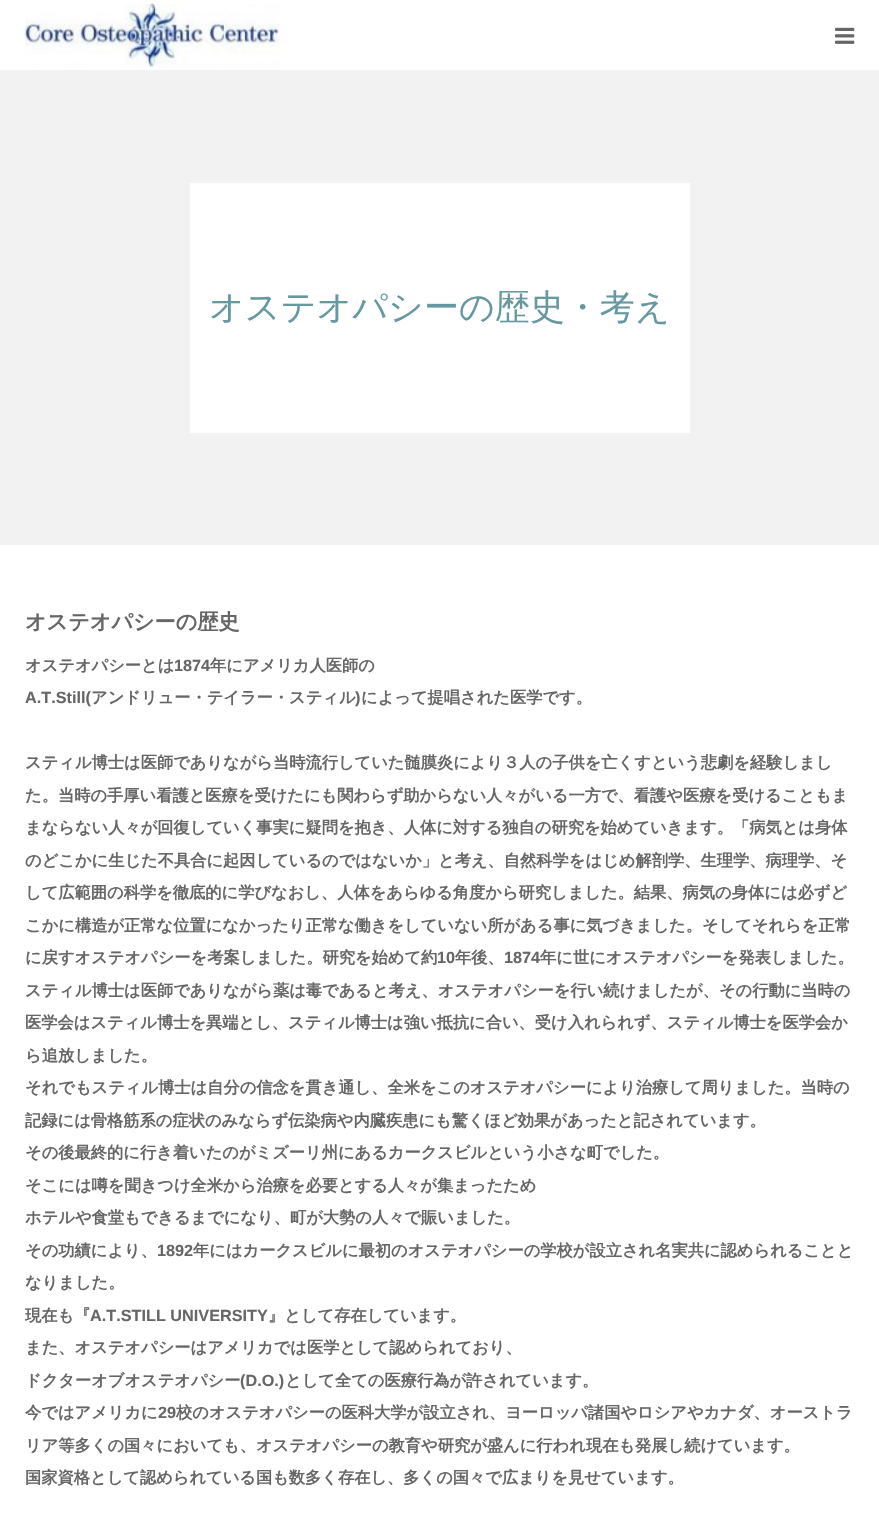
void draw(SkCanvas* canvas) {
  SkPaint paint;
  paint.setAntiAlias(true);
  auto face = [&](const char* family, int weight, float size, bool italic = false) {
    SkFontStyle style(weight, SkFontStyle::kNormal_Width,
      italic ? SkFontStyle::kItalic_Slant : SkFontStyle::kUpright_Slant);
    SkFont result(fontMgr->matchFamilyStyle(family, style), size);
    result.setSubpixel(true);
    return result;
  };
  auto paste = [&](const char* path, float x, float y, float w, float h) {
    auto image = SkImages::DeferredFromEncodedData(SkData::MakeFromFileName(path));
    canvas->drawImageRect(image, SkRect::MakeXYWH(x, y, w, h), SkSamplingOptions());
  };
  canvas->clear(0xffffffff);
  paste("img/1.png", 25, 3, 254, 64);
  paste("img/2.png", 835, 27, 20, 17);
  paint.setColor(0xfff2f2f2);
  canvas->drawRect(SkRect::MakeXYWH(0, 70, 879, 475), paint);
  paint.setColor(0xffffffff);
  canvas->drawRect(SkRect::MakeXYWH(190, 183, 500, 250), paint);
  auto f0 = face("WenQuanYi Zen Hei", 500, 35);
  paint.setColor(0xff6598a0);
  canvas->drawString("オステオパシーの歴史・考え", 209, 319, f0, paint);
  auto f1 = face("WenQuanYi Zen Hei", 700, 21.1f);
  paint.setColor(0xff666666);
  canvas->drawString("オステオパシーの歴史", 25, 629, f1, paint);
  auto f2 = face("WenQuanYi Zen Hei", 700, 16.25f);
  canvas->drawString("オステオパシーとは", 25, 671, f2, paint);
  auto f3 = face("Liberation Sans", 700, 16.25f);
  canvas->drawString("1874", 174, 671, f3, paint);
  canvas->drawString("年にアメリカ人医師の", 210, 671, f2, paint);
  canvas->drawString("A.T.Still(", 25, 703, f3, paint);
  canvas->drawString("アンドリュー・テイラー・スティル", 91, 703, f2, paint);
  canvas->drawString(")", 355, 703, f3, paint);
  {
    const struct { const char* s; float x, y; } items[] = {
      {"によって提唱された医学です。", 361, 703},
      {"スティル博士は医師でありながら当時流行していた髄膜炎により３人の子供を亡くすという悲劇を経験しまし", 25, 768},
      {"た。当時の手厚い看護と医療を受けたにも関わらず助からない人々がいる一方で、看護や医療を受けることもま", 25, 801},
      {"まならない人々が回復していく事実に疑問を抱き、人体に対する独自の研究を始めていきます。「病気とは身体", 25, 833},
      {"のどこかに生じた不具合に起因しているのではないか」と考え、自然科学をはじめ解剖学、生理学、病理学、そ", 25, 866},
      {"して広範囲の科学を徹底的に学びなおし、人体をあらゆる角度から研究しました。結果、病気の身体には必ずど", 25, 898},
      {"こかに構造が正常な位置になかったり正常な働きをしていない所がある事に気づきました。そしてそれらを正常", 25, 931},
      {"に戻すオステオパシーを考案しました。研究を始めて約", 25, 963},
    };
    for (auto [s, x, y] : items) {
      canvas->drawString(s, x, y, f2, paint);
    }
  }
  canvas->drawString("10", 437, 963, f3, paint);
  canvas->drawString("年後、", 455, 963, f2, paint);
  canvas->drawString("1874", 504, 963, f3, paint);
  {
    const struct { const char* s; float x, y; } items[] = {
      {"年に世にオステオパシーを発表しました。", 540, 963},
      {"スティル博士は医師でありながら薬は毒であると考え、オステオパシーを行い続けましたが、その行動に当時の", 25, 996},
      {"医学会はスティル博士を異端とし、スティル博士は強い抵抗に合い、受け入れられず、スティル博士を医学会か", 25, 1028},
      {"ら追放しました。", 25, 1061},
      {"それでもスティル博士は自分の信念を貫き通し、全米をこのオステオパシーにより治療して周りました。当時の", 25, 1093},
      {"記録には骨格筋系の症状のみならず伝染病や内臓疾患にも驚くほど効果があったと記されています。", 25, 1126},
      {"その後最終的に行き着いたのがミズーリ州にあるカークスビルという小さな町でした。", 25, 1158},
      {"そこには噂を聞きつけ全米から治療を必要とする人々が集まったため", 25, 1191},
      {"ホテルや食堂もできるまでになり、町が大勢の人々で賑いました。", 25, 1223},
      {"その功績により、", 25, 1256},
    };
    for (auto [s, x, y] : items) {
      canvas->drawString(s, x, y, f2, paint);
    }
  }
  canvas->drawString("1892", 157, 1256, f3, paint);
  {
    const struct { const char* s; float x, y; } items[] = {
      {"年にはカークスビルに最初のオステオパシーの学校が設立され名実共に認められることと", 193, 1256},
      {"なりました。", 25, 1288},
      {"現在も『", 25, 1321},
    };
    for (auto [s, x, y] : items) {
      canvas->drawString(s, x, y, f2, paint);
    }
  }
  canvas->drawString("A.T.STILL UNIVERSITY", 90, 1321, f3, paint);
  {
    const struct { const char* s; float x, y; } items[] = {
      {"』として存在しています。", 268, 1321},
      {"また、オステオパシーはアメリカでは医学として認められており、", 25, 1353},
      {"ドクターオブオステオパシー", 25, 1386},
    };
    for (auto [s, x, y] : items) {
      canvas->drawString(s, x, y, f2, paint);
    }
  }
  canvas->drawString("(D.O.)", 240, 1386, f3, paint);
  canvas->drawString("として全ての医療行為が許されています。", 285, 1386, f2, paint);
  canvas->drawString("今ではアメリカに", 25, 1418, f2, paint);
  canvas->drawString("29", 158, 1418, f3, paint);
  {
    const struct { const char* s; float x, y; } items[] = {
      {"校のオステオパシーの医科大学が設立され、ヨーロッパ諸国やロシアやカナダ、オーストラ", 176, 1418},
      {"リア等多くの国々においても、オステオパシーの教育や研究が盛んに行われ現在も発展し続けています。", 25, 1451},
      {"国家資格として認められている国も数多く存在し、多くの国々で広まりを見せています。", 25, 1483},
    };
    for (auto [s, x, y] : items) {
      canvas->drawString(s, x, y, f2, paint);
    }
  }
}
